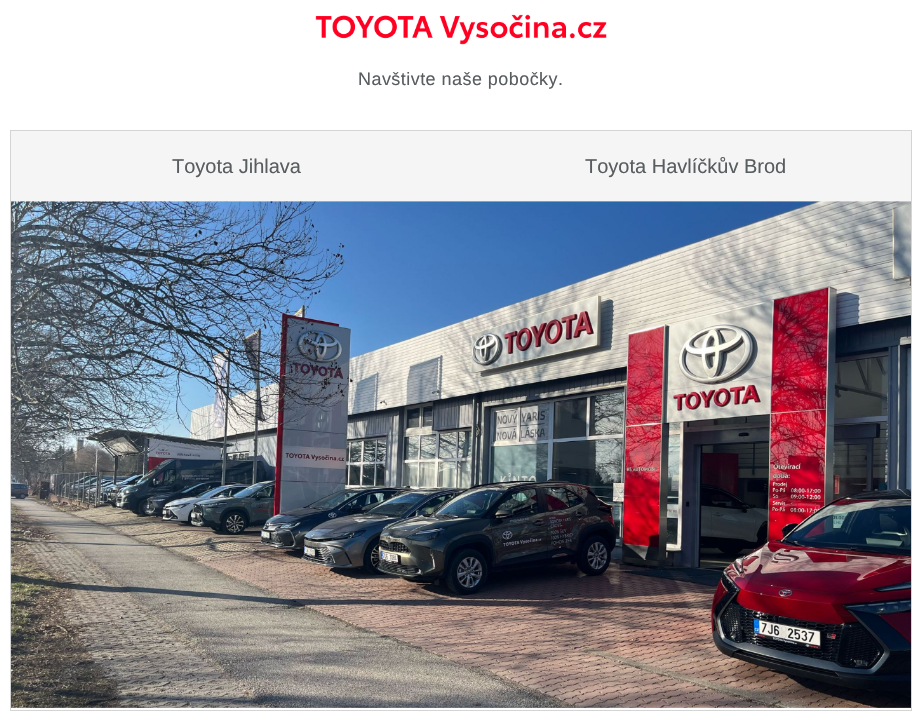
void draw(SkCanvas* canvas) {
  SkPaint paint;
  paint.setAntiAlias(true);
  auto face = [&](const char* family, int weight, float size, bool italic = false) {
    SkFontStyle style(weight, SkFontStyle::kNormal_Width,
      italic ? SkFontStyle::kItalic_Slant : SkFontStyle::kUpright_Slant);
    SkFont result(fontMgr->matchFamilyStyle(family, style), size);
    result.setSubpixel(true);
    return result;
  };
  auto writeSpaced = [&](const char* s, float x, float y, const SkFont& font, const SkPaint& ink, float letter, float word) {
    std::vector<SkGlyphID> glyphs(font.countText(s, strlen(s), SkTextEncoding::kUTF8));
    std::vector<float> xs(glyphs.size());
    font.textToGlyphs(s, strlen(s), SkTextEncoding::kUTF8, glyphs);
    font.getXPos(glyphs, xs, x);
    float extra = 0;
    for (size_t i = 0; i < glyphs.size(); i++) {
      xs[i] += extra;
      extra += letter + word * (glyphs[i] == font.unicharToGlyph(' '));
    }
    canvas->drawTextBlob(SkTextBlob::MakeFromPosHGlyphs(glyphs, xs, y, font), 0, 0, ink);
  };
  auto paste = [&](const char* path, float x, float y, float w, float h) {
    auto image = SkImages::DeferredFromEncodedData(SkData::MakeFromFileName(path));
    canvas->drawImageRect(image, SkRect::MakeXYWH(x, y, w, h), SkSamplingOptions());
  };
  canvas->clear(0xffffffff);
  paste("img/1.png", 315, 14, 292, 31);
  {
    const struct { float x, y, w, h; SkColor color; } items[] = {
      {11, 131, 900, 70, 0xfff5f5f5},
      {10, 130, 902, 1, 0xffd4d4d4},
      {911, 130, 1, 581, 0xffd4d4d4},
      {10, 130, 1, 71, 0xffd4d4d4},
      {10, 710, 902, 1, 0xffd4d4d4},
      {10, 201, 1, 510, 0xffd4d4d4},
    };
    for (auto [x, y, w, h, color] : items) {
      paint.setColor(color);
      canvas->drawRect(SkRect::MakeXYWH(x, y, w, h), paint);
    }
  }
  paste("img/2.png", 11, 201, 900, 507);
  auto f0 = face("Liberation Sans", 400, 18);
  paint.setColor(0xff585d60);
  writeSpaced("Navštivte naše pobočky.", 358, 85, f0, paint, 0.45f, 0);
  auto f1 = face("Liberation Sans", 400, 20);
  canvas->drawString("Toyota Jihlava", 172, 173, f1, paint);
  canvas->drawString("Toyota Havlíčkův Brod", 585, 173, f1, paint);
}
